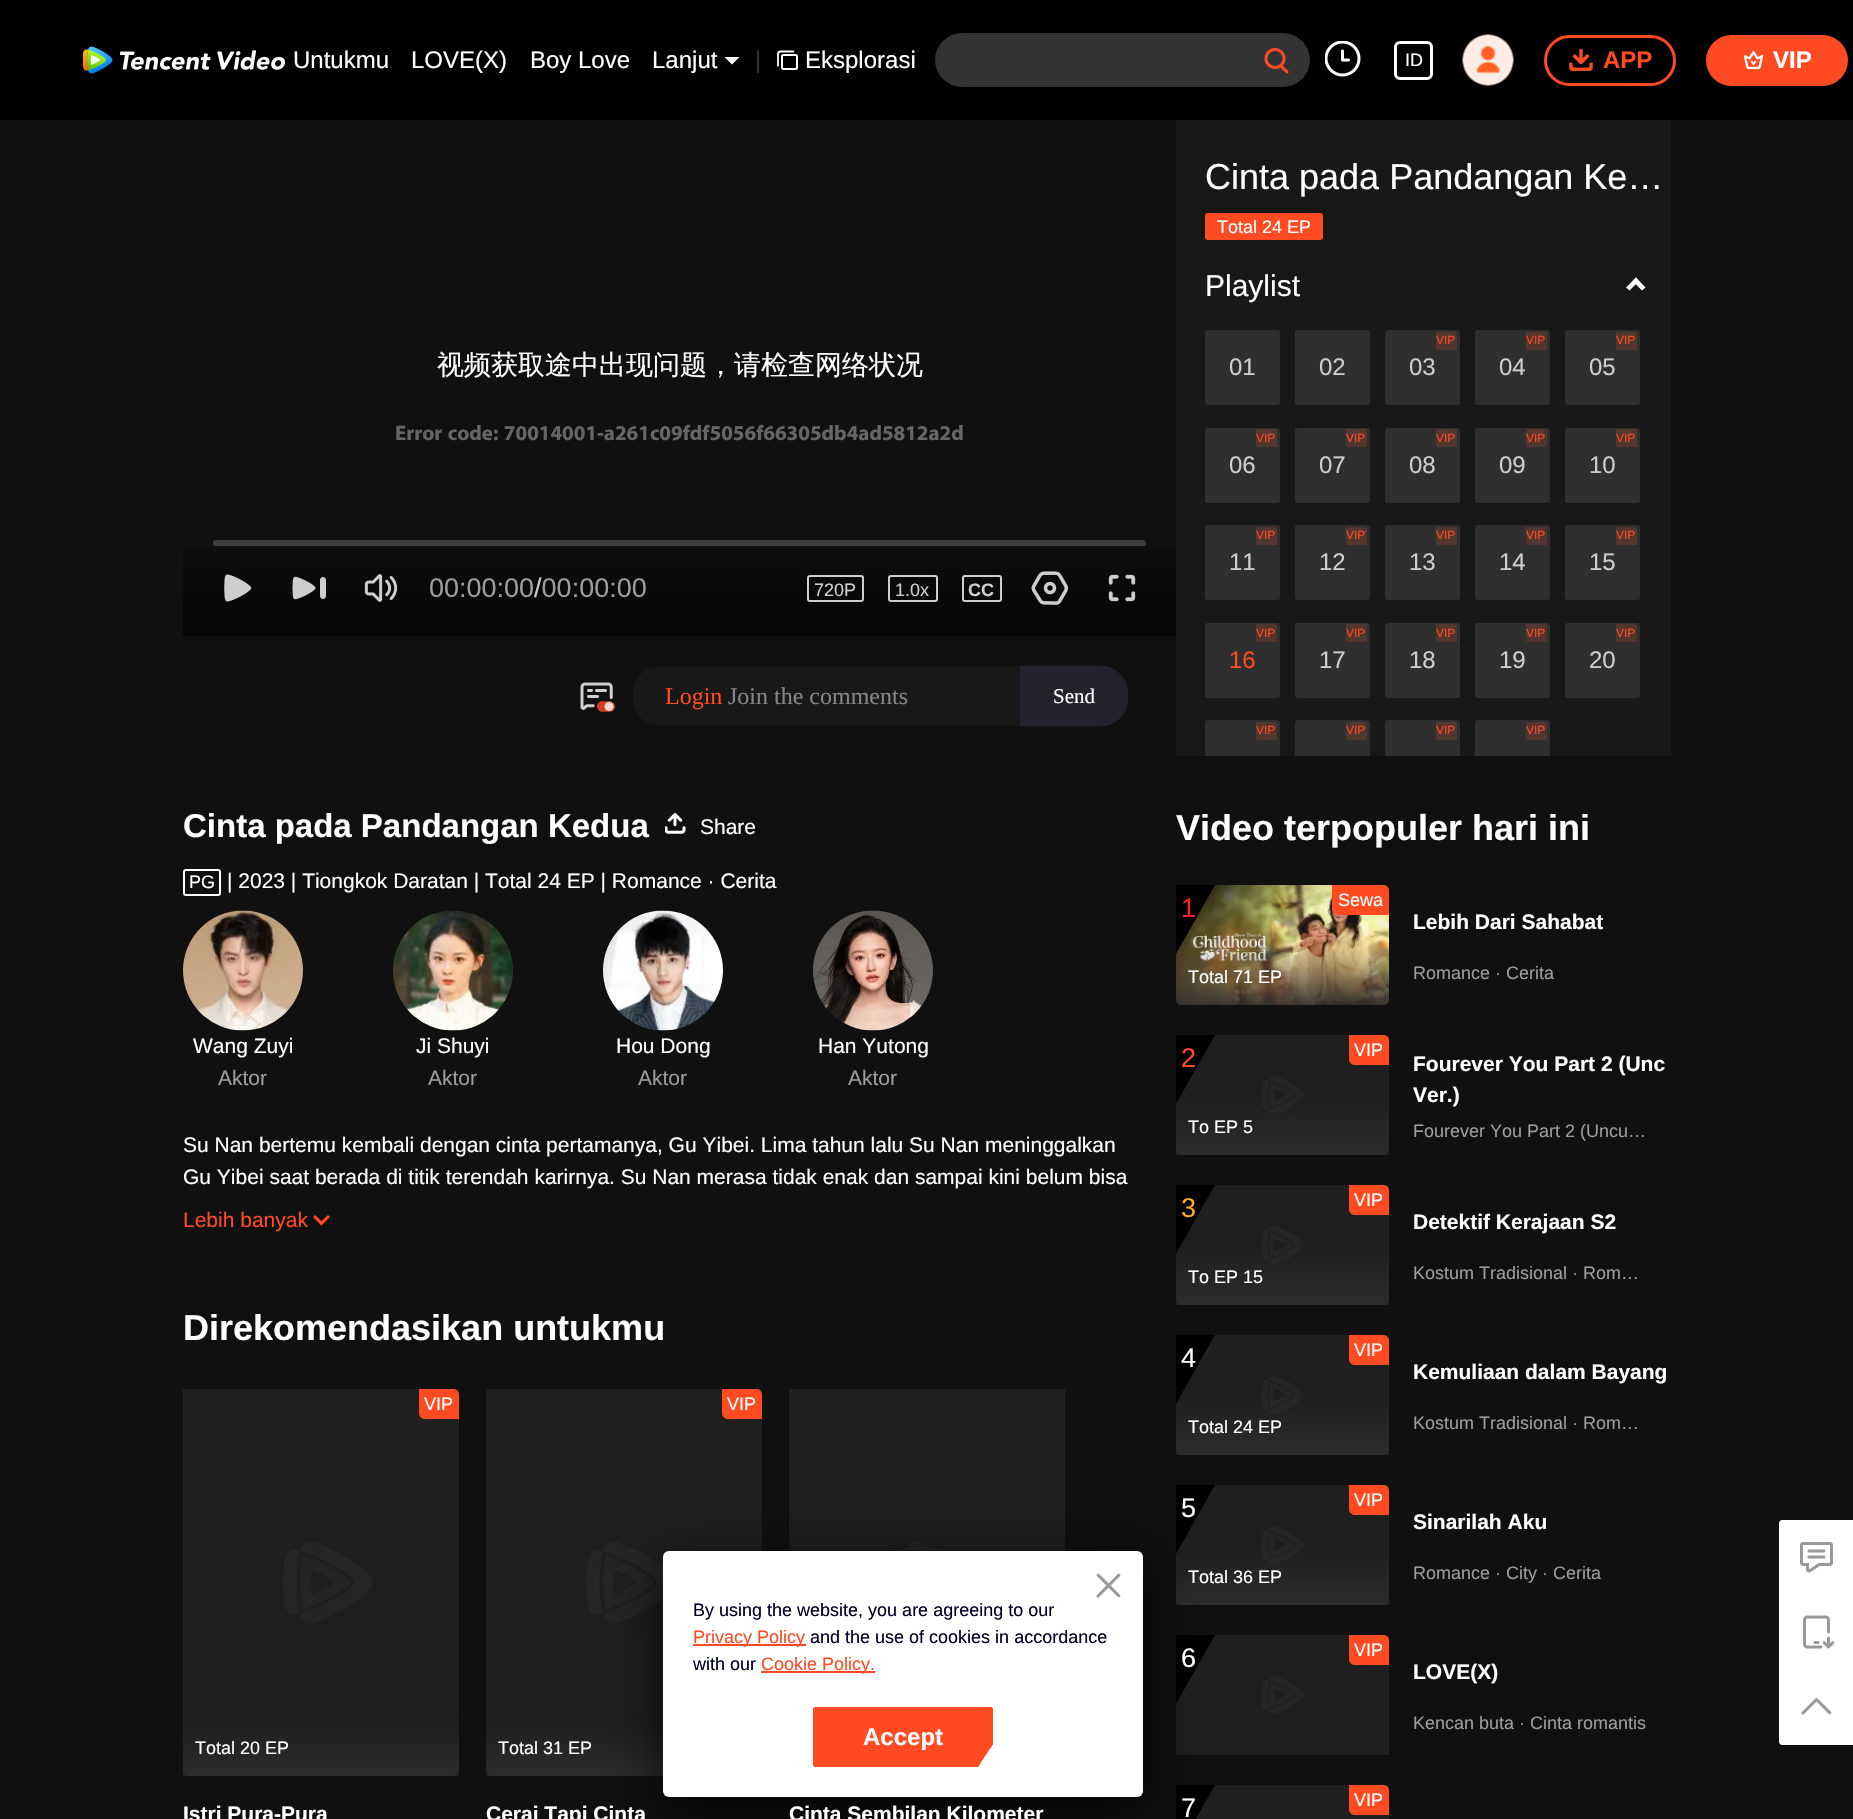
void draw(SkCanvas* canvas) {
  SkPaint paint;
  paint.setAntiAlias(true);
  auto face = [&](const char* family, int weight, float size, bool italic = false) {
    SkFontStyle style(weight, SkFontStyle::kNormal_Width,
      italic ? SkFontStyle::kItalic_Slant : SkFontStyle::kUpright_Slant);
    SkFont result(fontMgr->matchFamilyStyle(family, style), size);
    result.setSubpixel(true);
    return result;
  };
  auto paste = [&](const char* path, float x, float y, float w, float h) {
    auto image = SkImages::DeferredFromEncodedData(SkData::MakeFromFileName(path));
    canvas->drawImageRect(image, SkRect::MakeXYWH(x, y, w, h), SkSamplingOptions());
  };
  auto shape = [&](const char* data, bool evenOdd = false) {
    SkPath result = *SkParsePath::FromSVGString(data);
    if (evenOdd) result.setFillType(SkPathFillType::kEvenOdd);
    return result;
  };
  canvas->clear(0xff101010);
  paint.setColor(0xff000000);
  canvas->drawRect(SkRect::MakeXYWH(0, 0, 1853, 120), paint);
  paste("img/1.png", 83, 46, 202, 28);
  paint.setColor(0xffffffff);
  canvas->drawPath(shape("M724.5 57H739.5L732 64.5Z"), paint);
  paint.setStroke(true);
  paint.setStrokeWidth(2);
  canvas->drawRoundRect(SkRect::MakeXYWH(782, 55, 15, 14), 1.5f, 1.5f, paint);
  paint.setStrokeWidth(1.8f);
  paint.setStrokeCap(SkPaint::kRound_Cap);
  canvas->drawPath(shape("M793.5 51.5H780.5C779 51.5 778 52.5 778 54V65.5"), paint);
  paint.setStroke(false);
  paint.setColor(0xff333333);
  canvas->drawRoundRect(SkRect::MakeXYWH(935, 33, 375, 54), 27, 27, paint);
  paste("img/2.png", 1264, 48, 25, 26);
  paste("img/3.png", 1325, 41, 36, 36);
  paint.setStroke(true);
  paint.setStrokeWidth(3);
  paint.setStrokeCap(SkPaint::kButt_Cap);
  paint.setColor(0xffffffff);
  canvas->drawRoundRect(SkRect::MakeXYWH(1395.5f, 42.5f, 36, 36), 4.5f, 4.5f, paint);
  paste("img/4.png", 1462, 34, 52, 52);
  paint.setColor(0xffff4a22);
  canvas->drawRoundRect(SkRect::MakeXYWH(1545.5f, 36.5f, 129, 48), 24, 24, paint);
  paste("img/5.png", 1569, 49, 24, 22);
  paint.setStroke(false);
  canvas->drawRoundRect(SkRect::MakeXYWH(1706, 35, 142, 51), 25.5f, 25.5f, paint);
  paste("img/6.png", 1744, 50, 20, 20);
  {
    const SkColor colors[] = {0xff111111, 0xff050505};
    const float stops[] = {0, 1};
    const SkPoint ends[] = {{680, 510}, {680, 636}};
    paint.setShader(SkGradientShader::MakeLinear(ends, colors, stops, 2, SkTileMode::kClamp));
    paint.setAlpha(255);
  }
  canvas->drawRect(SkRect::MakeXYWH(183, 547, 993, 89), paint);
  paint.setShader(nullptr);
  paint.setColor(0xff3e3e3e);
  canvas->drawRoundRect(SkRect::MakeXYWH(213, 540, 933, 6), 3, 3, paint);
  paste("img/7.png", 224, 574, 28, 28);
  paste("img/8.png", 292, 576, 34, 24);
  paste("img/9.png", 364, 574, 34, 28);
  paint.setStroke(true);
  paint.setStrokeWidth(2);
  paint.setColor(0xccffffff);
  canvas->drawRoundRect(SkRect::MakeXYWH(808, 576, 55, 25), 2, 2, paint);
  canvas->drawRoundRect(SkRect::MakeXYWH(889, 576, 48, 25), 2, 2, paint);
  canvas->drawRoundRect(SkRect::MakeXYWH(963, 576, 38, 25), 2, 2, paint);
  paste("img/10.png", 1031, 571, 38, 34);
  paste("img/11.png", 1108, 574, 28, 28);
  paste("img/12.png", 580, 682, 35, 30);
  paint.setStroke(false);
  paint.setColor(0xff181818);
  canvas->drawRoundRect(SkRect::MakeXYWH(633, 666, 495, 60), 27, 27, paint);
  paint.setColor(0x99292a3c);
  canvas->drawPath(shape("M1020 666H1101C1116 666 1128 678 1128 693V699C1128 714 1116 726 1101 726H1020Z"), paint);
  paint.setColor(0xff181818);
  canvas->drawRect(SkRect::MakeXYWH(1176, 120, 495, 636), paint);
  paint.setColor(0xffff4a22);
  canvas->drawRoundRect(SkRect::MakeXYWH(1205, 213, 118, 27), 3, 3, paint);
  paint.setColor(0xffffffff);
  canvas->drawPath(shape("M1629.5 290.5L1626 287.5L1636 277.5L1639 281Z"), paint);
  canvas->drawPath(shape("M1642 290.5L1632.5 281L1636 277.5L1645.5 287.5Z"), paint);
  paint.setColor(0xff2f2f2f);
  canvas->drawRoundRect(SkRect::MakeXYWH(1205, 330, 75, 75), 3, 3, paint);
  canvas->drawRoundRect(SkRect::MakeXYWH(1295, 330, 75, 75), 3, 3, paint);
  canvas->drawRoundRect(SkRect::MakeXYWH(1385, 330, 75, 75), 3, 3, paint);
  paint.setColor(0xff53362e);
  canvas->drawPath(shape("M1436 332H1455C1456 332 1457 333 1457 334V350H1438C1437 350 1436 349 1436 348Z"), paint);
  paint.setColor(0xff2f2f2f);
  canvas->drawRoundRect(SkRect::MakeXYWH(1475, 330, 75, 75), 3, 3, paint);
  paint.setColor(0xff53362e);
  canvas->drawPath(shape("M1526 332H1545C1546 332 1547 333 1547 334V350H1528C1527 350 1526 349 1526 348Z"), paint);
  paint.setColor(0xff2f2f2f);
  canvas->drawRoundRect(SkRect::MakeXYWH(1565, 330, 75, 75), 3, 3, paint);
  paint.setColor(0xff53362e);
  canvas->drawPath(shape("M1616 332H1635C1636 332 1637 333 1637 334V350H1618C1617 350 1616 349 1616 348Z"), paint);
  paint.setColor(0xff2f2f2f);
  canvas->drawRoundRect(SkRect::MakeXYWH(1205, 428, 75, 75), 3, 3, paint);
  paint.setColor(0xff53362e);
  canvas->drawPath(shape("M1256 429H1275C1276 429 1277 430 1277 431V447H1258C1257 447 1256 446 1256 445Z"), paint);
  paint.setColor(0xff2f2f2f);
  canvas->drawRoundRect(SkRect::MakeXYWH(1295, 428, 75, 75), 3, 3, paint);
  paint.setColor(0xff53362e);
  canvas->drawPath(shape("M1346 429H1365C1366 429 1367 430 1367 431V447H1348C1347 447 1346 446 1346 445Z"), paint);
  paint.setColor(0xff2f2f2f);
  canvas->drawRoundRect(SkRect::MakeXYWH(1385, 428, 75, 75), 3, 3, paint);
  paint.setColor(0xff53362e);
  canvas->drawPath(shape("M1436 429H1455C1456 429 1457 430 1457 431V447H1438C1437 447 1436 446 1436 445Z"), paint);
  paint.setColor(0xff2f2f2f);
  canvas->drawRoundRect(SkRect::MakeXYWH(1475, 428, 75, 75), 3, 3, paint);
  paint.setColor(0xff53362e);
  canvas->drawPath(shape("M1526 429H1545C1546 429 1547 430 1547 431V447H1528C1527 447 1526 446 1526 445Z"), paint);
  paint.setColor(0xff2f2f2f);
  canvas->drawRoundRect(SkRect::MakeXYWH(1565, 428, 75, 75), 3, 3, paint);
  paint.setColor(0xff53362e);
  canvas->drawPath(shape("M1616 429H1635C1636 429 1637 430 1637 431V447H1618C1617 447 1616 446 1616 445Z"), paint);
  paint.setColor(0xff2f2f2f);
  canvas->drawRoundRect(SkRect::MakeXYWH(1205, 525, 75, 75), 3, 3, paint);
  paint.setColor(0xff53362e);
  canvas->drawPath(shape("M1256 527H1275C1276 527 1277 528 1277 529V545H1258C1257 545 1256 544 1256 543Z"), paint);
  paint.setColor(0xff2f2f2f);
  canvas->drawRoundRect(SkRect::MakeXYWH(1295, 525, 75, 75), 3, 3, paint);
  paint.setColor(0xff53362e);
  canvas->drawPath(shape("M1346 527H1365C1366 527 1367 528 1367 529V545H1348C1347 545 1346 544 1346 543Z"), paint);
  paint.setColor(0xff2f2f2f);
  canvas->drawRoundRect(SkRect::MakeXYWH(1385, 525, 75, 75), 3, 3, paint);
  paint.setColor(0xff53362e);
  canvas->drawPath(shape("M1436 527H1455C1456 527 1457 528 1457 529V545H1438C1437 545 1436 544 1436 543Z"), paint);
  paint.setColor(0xff2f2f2f);
  canvas->drawRoundRect(SkRect::MakeXYWH(1475, 525, 75, 75), 3, 3, paint);
  paint.setColor(0xff53362e);
  canvas->drawPath(shape("M1526 527H1545C1546 527 1547 528 1547 529V545H1528C1527 545 1526 544 1526 543Z"), paint);
  paint.setColor(0xff2f2f2f);
  canvas->drawRoundRect(SkRect::MakeXYWH(1565, 525, 75, 75), 3, 3, paint);
  paint.setColor(0xff53362e);
  canvas->drawPath(shape("M1616 527H1635C1636 527 1637 528 1637 529V545H1618C1617 545 1616 544 1616 543Z"), paint);
  paint.setColor(0xff2f2f2f);
  canvas->drawRoundRect(SkRect::MakeXYWH(1205, 623, 75, 75), 3, 3, paint);
  paint.setColor(0xff53362e);
  canvas->drawPath(shape("M1256 624H1275C1276 624 1277 625 1277 626V642H1258C1257 642 1256 641 1256 640Z"), paint);
  paint.setColor(0xff2f2f2f);
  canvas->drawRoundRect(SkRect::MakeXYWH(1295, 623, 75, 75), 3, 3, paint);
  paint.setColor(0xff53362e);
  canvas->drawPath(shape("M1346 624H1365C1366 624 1367 625 1367 626V642H1348C1347 642 1346 641 1346 640Z"), paint);
  paint.setColor(0xff2f2f2f);
  canvas->drawRoundRect(SkRect::MakeXYWH(1385, 623, 75, 75), 3, 3, paint);
  paint.setColor(0xff53362e);
  canvas->drawPath(shape("M1436 624H1455C1456 624 1457 625 1457 626V642H1438C1437 642 1436 641 1436 640Z"), paint);
  paint.setColor(0xff2f2f2f);
  canvas->drawRoundRect(SkRect::MakeXYWH(1475, 623, 75, 75), 3, 3, paint);
  paint.setColor(0xff53362e);
  canvas->drawPath(shape("M1526 624H1545C1546 624 1547 625 1547 626V642H1528C1527 642 1526 641 1526 640Z"), paint);
  paint.setColor(0xff2f2f2f);
  canvas->drawRoundRect(SkRect::MakeXYWH(1565, 623, 75, 75), 3, 3, paint);
  paint.setColor(0xff53362e);
  canvas->drawPath(shape("M1616 624H1635C1636 624 1637 625 1637 626V642H1618C1617 642 1616 641 1616 640Z"), paint);
  paint.setColor(0xff2f2f2f);
  canvas->drawPath(shape("M1208 720H1277C1278.5 720 1280 721.5 1280 723V756H1205V723C1205 721.5 1206.5 720 1208 720Z"), paint);
  paint.setColor(0xff53362e);
  canvas->drawPath(shape("M1256 722H1275C1276 722 1277 723 1277 724V740H1258C1257 740 1256 739 1256 738Z"), paint);
  paint.setColor(0xff2f2f2f);
  canvas->drawPath(shape("M1298 720H1367C1368.5 720 1370 721.5 1370 723V756H1295V723C1295 721.5 1296.5 720 1298 720Z"), paint);
  paint.setColor(0xff53362e);
  canvas->drawPath(shape("M1346 722H1365C1366 722 1367 723 1367 724V740H1348C1347 740 1346 739 1346 738Z"), paint);
  paint.setColor(0xff2f2f2f);
  canvas->drawPath(shape("M1388 720H1457C1458.5 720 1460 721.5 1460 723V756H1385V723C1385 721.5 1386.5 720 1388 720Z"), paint);
  paint.setColor(0xff53362e);
  canvas->drawPath(shape("M1436 722H1455C1456 722 1457 723 1457 724V740H1438C1437 740 1436 739 1436 738Z"), paint);
  paint.setColor(0xff2f2f2f);
  canvas->drawPath(shape("M1478 720H1547C1548.5 720 1550 721.5 1550 723V756H1475V723C1475 721.5 1476.5 720 1478 720Z"), paint);
  paint.setColor(0xff53362e);
  canvas->drawPath(shape("M1526 722H1545C1546 722 1547 723 1547 724V740H1528C1527 740 1526 739 1526 738Z"), paint);
  paste("img/13.png", 665, 813, 21, 21);
  paint.setStroke(true);
  paint.setColor(0xffffffff);
  canvas->drawRoundRect(SkRect::MakeXYWH(184, 870, 36, 25), 2, 2, paint);
  paste("img/14.png", 183, 910, 120, 121);
  paste("img/15.png", 393, 910, 120, 121);
  paste("img/16.png", 603, 910, 120, 121);
  paste("img/17.png", 813, 910, 120, 121);
  paint.setStroke(false);
  paint.setColor(0xffff4a22);
  canvas->drawPath(shape("M328 1215L330 1217L321.5 1225.5L319.5 1223Z"), paint);
  canvas->drawPath(shape("M315 1215L323.5 1223L321.5 1225.5L313 1217Z"), paint);
  paste("img/18.png", 183, 1389, 276, 387);
  canvas->drawPath(shape("M419 1389H453C456.5 1389 459 1391.5 459 1395V1419H425C421.5 1419 419 1416.5 419 1413Z"), paint);
  {
    const SkColor colors[] = {0xff2c2c2c, 0xff1e1e1e};
    const float stops[] = {0, 1};
    const SkPoint ends[] = {{321, 1776}, {321, 1719}};
    paint.setShader(SkGradientShader::MakeLinear(ends, colors, stops, 2, SkTileMode::kClamp));
    paint.setAlpha(255);
  }
  canvas->drawPath(shape("M183 1719H459V1770C459 1773.5 456.5 1776 453 1776H189C185.5 1776 183 1773.5 183 1770Z"), paint);
  paste("img/18.png", 486, 1389, 276, 387);
  paint.setShader(nullptr);
  paint.setColor(0xffff4a22);
  canvas->drawPath(shape("M722 1389H756C759.5 1389 762 1391.5 762 1395V1419H728C724.5 1419 722 1416.5 722 1413Z"), paint);
  {
    const SkColor colors[] = {0xff2c2c2c, 0xff1e1e1e};
    const float stops[] = {0, 1};
    const SkPoint ends[] = {{624, 1776}, {624, 1719}};
    paint.setShader(SkGradientShader::MakeLinear(ends, colors, stops, 2, SkTileMode::kClamp));
    paint.setAlpha(255);
  }
  canvas->drawPath(shape("M486 1719H762V1770C762 1773.5 759.5 1776 756 1776H492C488.5 1776 486 1773.5 486 1770Z"), paint);
  paste("img/19.png", 789, 1389, 276, 162);
  paste("img/20.png", 1176, 885, 213, 120);
  paint.setShader(nullptr);
  paint.setColor(0xffff4a22);
  canvas->drawPath(shape("M1332 885H1383C1386.5 885 1389 887.5 1389 891V915H1338C1334.5 915 1332 912.5 1332 909Z"), paint);
  paint.setColor(0xff000000);
  canvas->drawPath(shape("M1176 885V954L1215 885Z"), paint);
  {
    const SkColor colors[] = {0xe62d2d2d, 0x002d2d2d};
    const float stops[] = {0, 1};
    const SkPoint ends[] = {{1283, 1005}, {1283, 948}};
    paint.setShader(SkGradientShader::MakeLinear(ends, colors, stops, 2, SkTileMode::kClamp));
    paint.setAlpha(255);
  }
  canvas->drawPath(shape("M1176 948H1389V999C1389 1002.5 1386.5 1005 1383 1005H1182C1178.5 1005 1176 1002.5 1176 999Z"), paint);
  paste("img/21.png", 1176, 1035, 213, 120);
  paint.setShader(nullptr);
  paint.setColor(0xffff4a22);
  canvas->drawPath(shape("M1349 1035H1383C1386.5 1035 1389 1037.5 1389 1041V1065H1355C1351.5 1065 1349 1062.5 1349 1059Z"), paint);
  paint.setColor(0xff000000);
  canvas->drawPath(shape("M1176 1035V1104L1215 1035Z"), paint);
  {
    const SkColor colors[] = {0xe62d2d2d, 0x002d2d2d};
    const float stops[] = {0, 1};
    const SkPoint ends[] = {{1283, 1155}, {1283, 1098}};
    paint.setShader(SkGradientShader::MakeLinear(ends, colors, stops, 2, SkTileMode::kClamp));
    paint.setAlpha(255);
  }
  canvas->drawPath(shape("M1176 1098H1389V1149C1389 1152.5 1386.5 1155 1383 1155H1182C1178.5 1155 1176 1152.5 1176 1149Z"), paint);
  paste("img/21.png", 1176, 1185, 213, 120);
  paint.setShader(nullptr);
  paint.setColor(0xffff4a22);
  canvas->drawPath(shape("M1349 1185H1383C1386.5 1185 1389 1187.5 1389 1191V1215H1355C1351.5 1215 1349 1212.5 1349 1209Z"), paint);
  paint.setColor(0xff000000);
  canvas->drawPath(shape("M1176 1185V1254L1215 1185Z"), paint);
  {
    const SkColor colors[] = {0xe62d2d2d, 0x002d2d2d};
    const float stops[] = {0, 1};
    const SkPoint ends[] = {{1283, 1305}, {1283, 1248}};
    paint.setShader(SkGradientShader::MakeLinear(ends, colors, stops, 2, SkTileMode::kClamp));
    paint.setAlpha(255);
  }
  canvas->drawPath(shape("M1176 1248H1389V1299C1389 1302.5 1386.5 1305 1383 1305H1182C1178.5 1305 1176 1302.5 1176 1299Z"), paint);
  paste("img/21.png", 1176, 1335, 213, 120);
  paint.setShader(nullptr);
  paint.setColor(0xffff4a22);
  canvas->drawPath(shape("M1349 1335H1383C1386.5 1335 1389 1337.5 1389 1341V1365H1355C1351.5 1365 1349 1362.5 1349 1359Z"), paint);
  paint.setColor(0xff000000);
  canvas->drawPath(shape("M1176 1335V1404L1215 1335Z"), paint);
  {
    const SkColor colors[] = {0xe62d2d2d, 0x002d2d2d};
    const float stops[] = {0, 1};
    const SkPoint ends[] = {{1283, 1455}, {1283, 1398}};
    paint.setShader(SkGradientShader::MakeLinear(ends, colors, stops, 2, SkTileMode::kClamp));
    paint.setAlpha(255);
  }
  canvas->drawPath(shape("M1176 1398H1389V1449C1389 1452.5 1386.5 1455 1383 1455H1182C1178.5 1455 1176 1452.5 1176 1449Z"), paint);
  paste("img/21.png", 1176, 1485, 213, 120);
  paint.setShader(nullptr);
  paint.setColor(0xffff4a22);
  canvas->drawPath(shape("M1349 1485H1383C1386.5 1485 1389 1487.5 1389 1491V1515H1355C1351.5 1515 1349 1512.5 1349 1509Z"), paint);
  paint.setColor(0xff000000);
  canvas->drawPath(shape("M1176 1485V1554L1215 1485Z"), paint);
  {
    const SkColor colors[] = {0xe62d2d2d, 0x002d2d2d};
    const float stops[] = {0, 1};
    const SkPoint ends[] = {{1283, 1605}, {1283, 1548}};
    paint.setShader(SkGradientShader::MakeLinear(ends, colors, stops, 2, SkTileMode::kClamp));
    paint.setAlpha(255);
  }
  canvas->drawPath(shape("M1176 1548H1389V1599C1389 1602.5 1386.5 1605 1383 1605H1182C1178.5 1605 1176 1602.5 1176 1599Z"), paint);
  paste("img/21.png", 1176, 1635, 213, 120);
  paint.setShader(nullptr);
  paint.setColor(0xff000000);
  canvas->drawPath(shape("M1176 1635V1704L1215 1635Z"), paint);
  paint.setColor(0xffff4a22);
  canvas->drawPath(shape("M1349 1635H1383C1386.5 1635 1389 1637.5 1389 1641V1665H1355C1351.5 1665 1349 1662.5 1349 1659Z"), paint);
  paste("img/22.png", 1195, 1785, 194, 34);
  paint.setColor(0xff000000);
  canvas->drawPath(shape("M1176 1785V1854L1215 1785Z"), paint);
  paint.setColor(0xffff4a22);
  canvas->drawPath(shape("M1349 1785H1383C1386.5 1785 1389 1787.5 1389 1791V1815H1355C1351.5 1815 1349 1812.5 1349 1809Z"), paint);
  paint.setColor(0xffffffff);
  canvas->drawPath(shape("M1782 1520H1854V1745H1782C1780.5 1745 1779 1743.5 1779 1742V1523C1779 1521.5 1780.5 1520 1782 1520Z"), paint);
  paste("img/23.png", 1800, 1542, 33, 31);
  paste("img/24.png", 1803, 1615, 32, 34);
  paste("img/25.png", 1801, 1698, 31, 17);
  paint.setColor(0xcc000000);
  paint.setMaskFilter(SkMaskFilter::MakeBlur(kNormal_SkBlurStyle, 27));
  canvas->drawRoundRect(SkRect::MakeXYWH(663, 1563, 480, 246), 6, 6, paint);
  paint.setMaskFilter(nullptr);
  paint.setColor(0xffffffff);
  canvas->drawRoundRect(SkRect::MakeXYWH(663, 1551, 480, 246), 6, 6, paint);
  paste("img/26.png", 1096, 1573, 25, 25);
  paint.setColor(0xffff4a22);
  canvas->drawRect(SkRect::MakeXYWH(693, 1644, 113, 2), paint);
  canvas->drawRect(SkRect::MakeXYWH(761, 1671, 114, 2), paint);
  canvas->drawPath(shape("M816 1707C814 1707 813 1708 813 1710V1764C813 1766 814 1767 816 1767H978L993 1744V1710C993 1708 992 1707 990 1707Z"), paint);
  canvas->drawPath(shape("M816 1707C814 1707 813 1708 813 1710V1764C813 1766 814 1767 816 1767H978L980 1764H816V1710H990V1749L993 1744V1710C993 1708 992 1707 990 1707Z"), paint);
  auto f0 = face("Liberation Sans", 400, 24);
  paint.setColor(0xffffffff);
  {
    const struct { const char* s; float x, y; } items[] = {
      {"Untukmu", 293, 68},
      {"LOVE(X)", 411, 68},
      {"Boy Love", 530, 68},
      {"Lanjut", 652, 68},
    };
    for (auto [s, x, y] : items) {
      canvas->drawString(s, x, y, f0, paint);
    }
  }
  paint.setColor(0xff333333);
  canvas->drawString("|", 755, 68, f0, paint);
  paint.setColor(0xffffffff);
  canvas->drawString("Eksplorasi", 805, 68, f0, paint);
  auto f1 = face("Liberation Sans", 400, 18);
  canvas->drawString("ID", 1405, 66, f1, paint);
  auto f2 = face("Liberation Sans", 700, 24);
  paint.setColor(0xffff4a22);
  canvas->drawString("APP", 1603, 68, f2, paint);
  paint.setColor(0xffffffff);
  canvas->drawString("VIP", 1773, 68, f2, paint);
  auto f3 = face("WenQuanYi Zen Hei", 500, 27);
  canvas->drawString("视频获取途中出现问题，请检查网络状况", 437, 374, f3, paint);
  auto f4 = face("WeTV", 700, 21);
  paint.setColor(0xff666666);
  canvas->drawString("Error code: 70014001-a261c09fdf5056f66305db4ad5812a2d", 395, 440, f4, paint);
  auto f5 = face("Liberation Sans", 400, 27);
  paint.setColor(0xff9d9d9d);
  canvas->drawString("00:00:00 00:00:00", 429, 597, f5, paint);
  paint.setColor(0xffcecece);
  canvas->drawString("/", 534, 597, f5, paint);
  canvas->drawString("720P", 814, 596, f1, paint);
  canvas->drawString("1.0x", 895, 596, f1, paint);
  auto f6 = face("Liberation Sans", 700, 18);
  canvas->drawString("CC", 968, 596, f6, paint);
  auto f7 = face("Liberation Serif", 400, 24);
  paint.setColor(0xffff4a22);
  canvas->drawString("Login", 665, 704, f7, paint);
  paint.setColor(0xff85868a);
  canvas->drawString("Join the comments", 728, 704, f7, paint);
  auto f8 = face("Liberation Serif", 400, 21);
  paint.setColor(0xffffffff);
  canvas->drawString("Send", 1053, 703, f8, paint);
  auto f9 = face("Liberation Sans", 400, 36);
  canvas->drawString("Cinta pada Pandangan Ke…", 1205, 189, f9, paint);
  canvas->drawString("Total 24 EP", 1217, 233, f1, paint);
  auto f10 = face("Liberation Sans", 400, 30);
  canvas->drawString("Playlist", 1205, 296, f10, paint);
  paint.setColor(0xffcecece);
  canvas->drawString("01", 1229, 375, f0, paint);
  canvas->drawString("02", 1319, 375, f0, paint);
  auto f11 = face("Liberation Sans", 400, 12);
  paint.setColor(0xffff4a22);
  canvas->drawString("VIP", 1436, 344, f11, paint);
  paint.setColor(0xffcecece);
  canvas->drawString("03", 1409, 375, f0, paint);
  paint.setColor(0xffff4a22);
  canvas->drawString("VIP", 1526, 344, f11, paint);
  paint.setColor(0xffcecece);
  canvas->drawString("04", 1499, 375, f0, paint);
  paint.setColor(0xffff4a22);
  canvas->drawString("VIP", 1616, 344, f11, paint);
  paint.setColor(0xffcecece);
  canvas->drawString("05", 1589, 375, f0, paint);
  paint.setColor(0xffff4a22);
  canvas->drawString("VIP", 1256, 442, f11, paint);
  paint.setColor(0xffcecece);
  canvas->drawString("06", 1229, 473, f0, paint);
  paint.setColor(0xffff4a22);
  canvas->drawString("VIP", 1346, 442, f11, paint);
  paint.setColor(0xffcecece);
  canvas->drawString("07", 1319, 473, f0, paint);
  paint.setColor(0xffff4a22);
  canvas->drawString("VIP", 1436, 442, f11, paint);
  paint.setColor(0xffcecece);
  canvas->drawString("08", 1409, 473, f0, paint);
  paint.setColor(0xffff4a22);
  canvas->drawString("VIP", 1526, 442, f11, paint);
  paint.setColor(0xffcecece);
  canvas->drawString("09", 1499, 473, f0, paint);
  paint.setColor(0xffff4a22);
  canvas->drawString("VIP", 1616, 442, f11, paint);
  paint.setColor(0xffcecece);
  canvas->drawString("10", 1589, 473, f0, paint);
  paint.setColor(0xffff4a22);
  canvas->drawString("VIP", 1256, 539, f11, paint);
  paint.setColor(0xffcecece);
  canvas->drawString("11", 1229, 570, f0, paint);
  paint.setColor(0xffff4a22);
  canvas->drawString("VIP", 1346, 539, f11, paint);
  paint.setColor(0xffcecece);
  canvas->drawString("12", 1319, 570, f0, paint);
  paint.setColor(0xffff4a22);
  canvas->drawString("VIP", 1436, 539, f11, paint);
  paint.setColor(0xffcecece);
  canvas->drawString("13", 1409, 570, f0, paint);
  paint.setColor(0xffff4a22);
  canvas->drawString("VIP", 1526, 539, f11, paint);
  paint.setColor(0xffcecece);
  canvas->drawString("14", 1499, 570, f0, paint);
  paint.setColor(0xffff4a22);
  canvas->drawString("VIP", 1616, 539, f11, paint);
  paint.setColor(0xffcecece);
  canvas->drawString("15", 1589, 570, f0, paint);
  paint.setColor(0xffff4a22);
  canvas->drawString("VIP", 1256, 637, f11, paint);
  canvas->drawString("16", 1229, 668, f0, paint);
  canvas->drawString("VIP", 1346, 637, f11, paint);
  paint.setColor(0xffcecece);
  canvas->drawString("17", 1319, 668, f0, paint);
  paint.setColor(0xffff4a22);
  canvas->drawString("VIP", 1436, 637, f11, paint);
  paint.setColor(0xffcecece);
  canvas->drawString("18", 1409, 668, f0, paint);
  paint.setColor(0xffff4a22);
  canvas->drawString("VIP", 1526, 637, f11, paint);
  paint.setColor(0xffcecece);
  canvas->drawString("19", 1499, 668, f0, paint);
  paint.setColor(0xffff4a22);
  canvas->drawString("VIP", 1616, 637, f11, paint);
  paint.setColor(0xffcecece);
  canvas->drawString("20", 1589, 668, f0, paint);
  paint.setColor(0xffff4a22);
  {
    const struct { const char* s; float x, y; } items[] = {
      {"VIP", 1256, 734},
      {"VIP", 1346, 734},
      {"VIP", 1436, 734},
      {"VIP", 1526, 734},
    };
    for (auto [s, x, y] : items) {
      canvas->drawString(s, x, y, f11, paint);
    }
  }
  auto f12 = face("Liberation Sans", 700, 33);
  paint.setColor(0xffffffff);
  canvas->drawString("Cinta pada Pandangan Kedua", 183, 837, f12, paint);
  auto f13 = face("Liberation Sans", 400, 21);
  canvas->drawString("Share", 700, 834, f13, paint);
  canvas->drawString("PG", 189, 888, f1, paint);
  canvas->drawString("| 2023 | Tiongkok Daratan | Total 24 EP | Romance · Cerita", 227, 888, f13, paint);
  canvas->drawString("Wang Zuyi", 193, 1053, f13, paint);
  paint.setColor(0xff9d9d9d);
  canvas->drawString("Aktor", 218, 1085, f13, paint);
  paint.setColor(0xffffffff);
  canvas->drawString("Ji Shuyi", 416, 1053, f13, paint);
  paint.setColor(0xff9d9d9d);
  canvas->drawString("Aktor", 428, 1085, f13, paint);
  paint.setColor(0xffffffff);
  canvas->drawString("Hou Dong", 616, 1053, f13, paint);
  paint.setColor(0xff9d9d9d);
  canvas->drawString("Aktor", 638, 1085, f13, paint);
  paint.setColor(0xffffffff);
  canvas->drawString("Han Yutong", 818, 1053, f13, paint);
  paint.setColor(0xff9d9d9d);
  canvas->drawString("Aktor", 848, 1085, f13, paint);
  paint.setColor(0xffffffff);
  canvas->drawString("Su Nan bertemu kembali dengan cinta pertamanya, Gu Yibei. Lima tahun lalu Su Nan meninggalkan", 183, 1152, f13, paint);
  canvas->drawString("Gu Yibei saat berada di titik terendah karirnya. Su Nan merasa tidak enak dan sampai kini belum bisa", 183, 1184, f13, paint);
  paint.setColor(0xffff4a22);
  canvas->drawString("Lebih banyak", 183, 1227, f13, paint);
  auto f14 = face("Liberation Sans", 700, 36);
  paint.setColor(0xffffffff);
  canvas->drawString("Direkomendasikan untukmu", 183, 1340, f14, paint);
  canvas->drawString("VIP", 424, 1410, f1, paint);
  canvas->drawString("Total 20 EP", 195, 1754, f1, paint);
  auto f15 = face("Liberation Sans", 700, 21);
  canvas->drawString("Istri Pura-Pura", 183, 1821, f15, paint);
  canvas->drawString("VIP", 727, 1410, f1, paint);
  canvas->drawString("Total 31 EP", 498, 1754, f1, paint);
  canvas->drawString("Cerai Tapi Cinta", 486, 1821, f15, paint);
  canvas->drawString("Cinta Sembilan Kilometer", 789, 1821, f15, paint);
  canvas->drawString("Video terpopuler hari ini", 1176, 840, f14, paint);
  canvas->drawString("Sewa", 1338, 906, f1, paint);
  canvas->drawString("Total 71 EP", 1188, 983, f1, paint);
  paint.setColor(0xffff2222);
  canvas->drawString("1", 1181, 917, f5, paint);
  paint.setColor(0xffffffff);
  canvas->drawString("Lebih Dari Sahabat", 1413, 929, f15, paint);
  paint.setColor(0xff9d9d9d);
  canvas->drawString("Romance · Cerita", 1413, 979, f1, paint);
  paint.setColor(0xffffffff);
  canvas->drawString("VIP", 1354, 1056, f1, paint);
  canvas->drawString("To EP 5", 1188, 1133, f1, paint);
  paint.setColor(0xffff4a22);
  canvas->drawString("2", 1181, 1067, f5, paint);
  paint.setColor(0xffffffff);
  canvas->drawString("Fourever You Part 2 (Unc", 1413, 1071, f15, paint);
  canvas->drawString("Ver.)", 1413, 1102, f15, paint);
  paint.setColor(0xff9d9d9d);
  canvas->drawString("Fourever You Part 2 (Uncu…", 1413, 1137, f1, paint);
  paint.setColor(0xffffffff);
  canvas->drawString("VIP", 1354, 1206, f1, paint);
  canvas->drawString("To EP 15", 1188, 1283, f1, paint);
  paint.setColor(0xffffad22);
  canvas->drawString("3", 1181, 1217, f5, paint);
  paint.setColor(0xffffffff);
  canvas->drawString("Detektif Kerajaan S2", 1413, 1229, f15, paint);
  paint.setColor(0xff9d9d9d);
  canvas->drawString("Kostum Tradisional · Rom…", 1413, 1279, f1, paint);
  paint.setColor(0xffffffff);
  canvas->drawString("VIP", 1354, 1356, f1, paint);
  canvas->drawString("Total 24 EP", 1188, 1433, f1, paint);
  canvas->drawString("4", 1181, 1367, f5, paint);
  canvas->drawString("Kemuliaan dalam Bayang", 1413, 1379, f15, paint);
  paint.setColor(0xff9d9d9d);
  canvas->drawString("Kostum Tradisional · Rom…", 1413, 1429, f1, paint);
  paint.setColor(0xffffffff);
  canvas->drawString("VIP", 1354, 1506, f1, paint);
  canvas->drawString("Total 36 EP", 1188, 1583, f1, paint);
  canvas->drawString("5", 1181, 1517, f5, paint);
  canvas->drawString("Sinarilah Aku", 1413, 1529, f15, paint);
  paint.setColor(0xff9d9d9d);
  canvas->drawString("Romance · City · Cerita", 1413, 1579, f1, paint);
  paint.setColor(0xffffffff);
  canvas->drawString("6", 1181, 1667, f5, paint);
  canvas->drawString("VIP", 1354, 1656, f1, paint);
  canvas->drawString("LOVE(X)", 1413, 1679, f15, paint);
  paint.setColor(0xff9d9d9d);
  canvas->drawString("Kencan buta · Cinta romantis", 1413, 1729, f1, paint);
  paint.setColor(0xffffffff);
  canvas->drawString("7", 1181, 1817, f5, paint);
  canvas->drawString("VIP", 1354, 1806, f1, paint);
  paint.setColor(0xff000028);
  canvas->drawString("By using the website, you are agreeing to our", 693, 1616, f1, paint);
  paint.setColor(0xffff4a22);
  canvas->drawString("Privacy Policy", 693, 1643, f1, paint);
  paint.setColor(0xff000028);
  canvas->drawString("and the use of cookies in accordance", 810, 1643, f1, paint);
  canvas->drawString("with our", 693, 1670, f1, paint);
  paint.setColor(0xffff4a22);
  canvas->drawString("Cookie Policy.", 761, 1670, f1, paint);
  paint.setColor(0xffffffff);
  canvas->drawString("Accept", 863, 1745, f2, paint);
}
